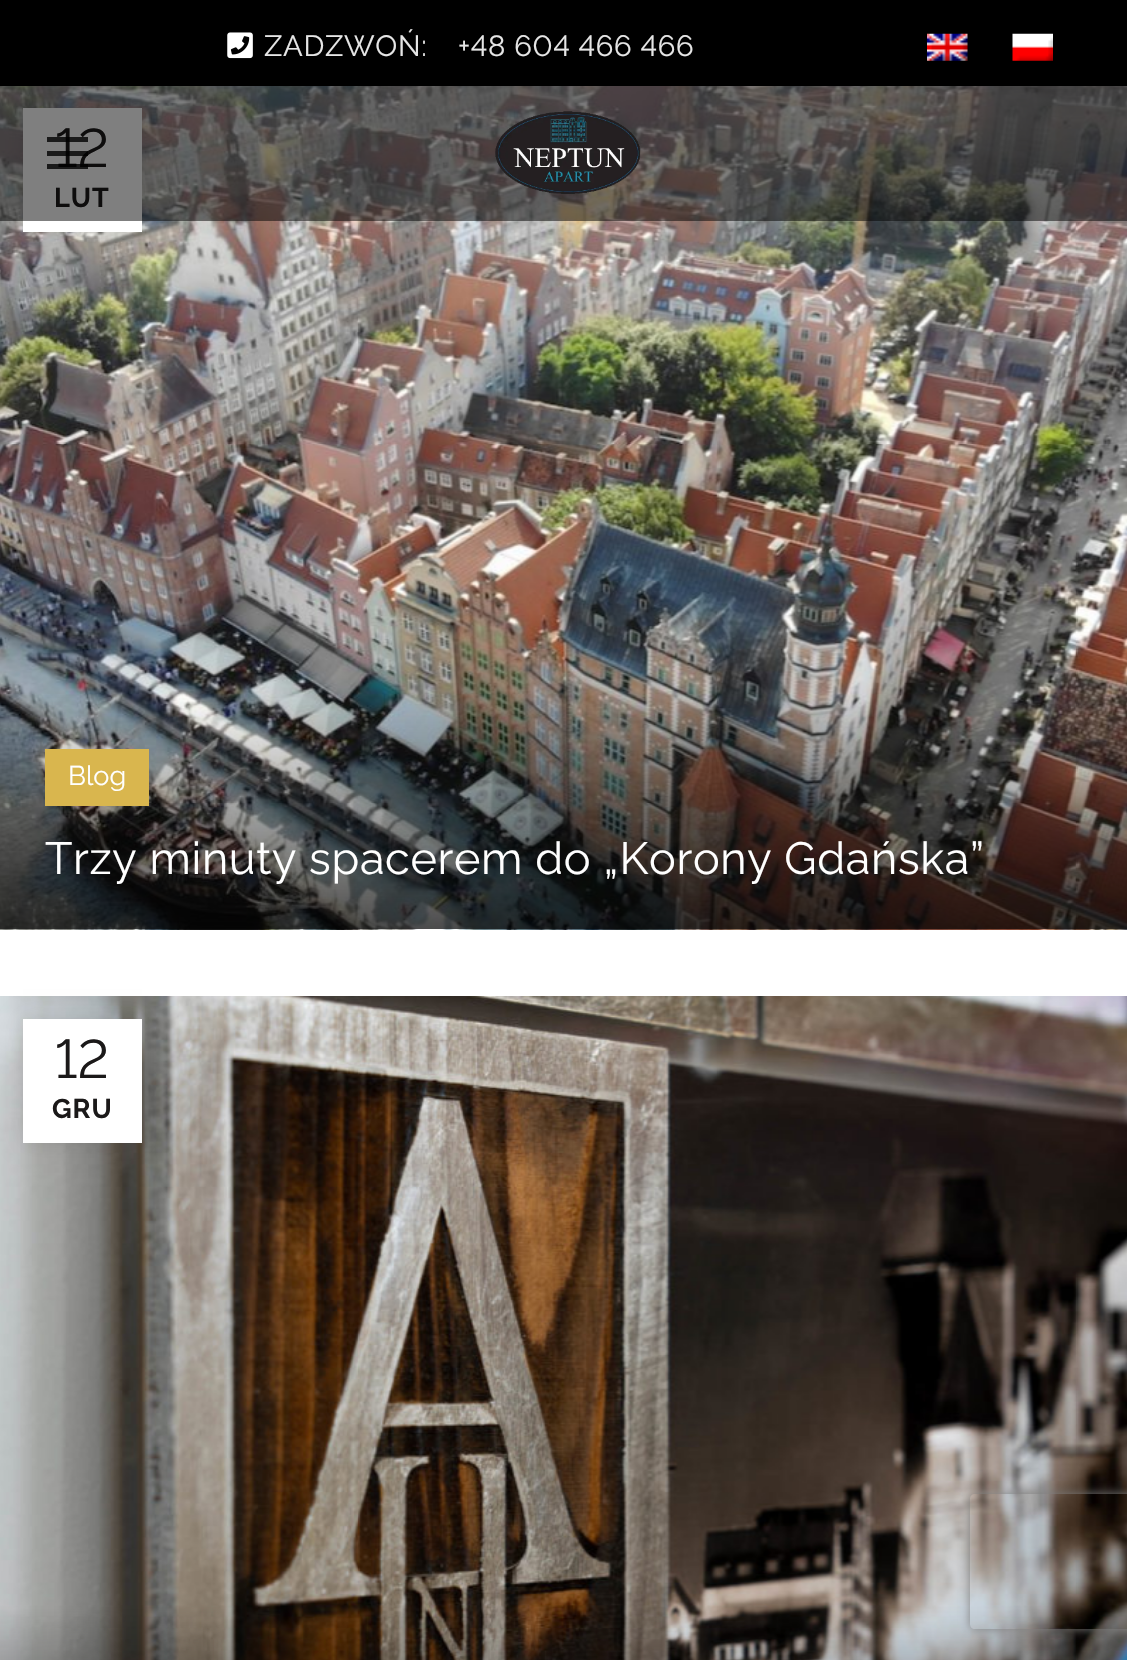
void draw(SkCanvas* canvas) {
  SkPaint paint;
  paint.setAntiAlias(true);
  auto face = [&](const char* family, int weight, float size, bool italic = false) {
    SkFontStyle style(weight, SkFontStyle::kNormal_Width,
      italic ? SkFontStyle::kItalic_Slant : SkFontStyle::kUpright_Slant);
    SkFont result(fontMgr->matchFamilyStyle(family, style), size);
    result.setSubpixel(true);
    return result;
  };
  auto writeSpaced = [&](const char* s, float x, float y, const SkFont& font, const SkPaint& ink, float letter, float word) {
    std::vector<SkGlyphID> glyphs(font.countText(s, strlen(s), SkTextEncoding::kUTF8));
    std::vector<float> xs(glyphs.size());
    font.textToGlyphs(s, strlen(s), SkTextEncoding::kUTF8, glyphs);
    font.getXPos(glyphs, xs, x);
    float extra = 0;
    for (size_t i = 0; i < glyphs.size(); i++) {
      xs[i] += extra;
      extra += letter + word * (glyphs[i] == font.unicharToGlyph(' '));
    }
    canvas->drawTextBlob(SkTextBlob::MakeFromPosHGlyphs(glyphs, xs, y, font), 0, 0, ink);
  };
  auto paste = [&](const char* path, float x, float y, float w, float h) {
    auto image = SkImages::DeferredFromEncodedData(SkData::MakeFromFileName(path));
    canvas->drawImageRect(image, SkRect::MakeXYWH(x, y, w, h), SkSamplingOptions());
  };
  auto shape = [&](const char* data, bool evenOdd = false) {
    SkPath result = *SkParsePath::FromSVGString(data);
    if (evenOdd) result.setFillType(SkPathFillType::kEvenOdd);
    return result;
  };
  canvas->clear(0xffffffff);
  paste("img/5.png", 0, 86, 1127, 844);
  paint.setColor(0x1a000000);
  paint.setMaskFilter(SkMaskFilter::MakeBlur(kNormal_SkBlurStyle, 10));
  canvas->drawRect(SkRect::MakeXYWH(23, 108, 119, 124), paint);
  paint.setMaskFilter(nullptr);
  paint.setColor(0xff000000);
  canvas->drawRect(SkRect::MakeXYWH(0, 0, 1127, 86), paint);
  paste("img/1.png", 227, 32, 26, 27);
  paste("img/2.png", 927, 33, 41, 28);
  paste("img/3.png", 1012, 33, 41, 28);
  paint.setColor(0xffffffff);
  canvas->drawRect(SkRect::MakeXYWH(23, 108, 119, 124), paint);
  paint.setColor(0xffd9b64e);
  canvas->drawRect(SkRect::MakeXYWH(45, 749, 104, 57), paint);
  paste("img/6.png", 0, 996, 1127, 664);
  paint.setColor(0x1a000000);
  paint.setMaskFilter(SkMaskFilter::MakeBlur(kNormal_SkBlurStyle, 10));
  canvas->drawRect(SkRect::MakeXYWH(23, 1019, 119, 124), paint);
  paint.setMaskFilter(nullptr);
  paint.setColor(0xffffffff);
  canvas->drawRect(SkRect::MakeXYWH(23, 1019, 119, 124), paint);
  canvas->save();
  canvas->clipPath(shape("M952 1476H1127V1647H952ZM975 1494H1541C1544 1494 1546 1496 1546 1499V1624C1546 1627 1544 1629 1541 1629H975C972 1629 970 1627 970 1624V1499C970 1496 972 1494 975 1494Z", true), true);
  paint.setColor(0xff808080);
  paint.setMaskFilter(SkMaskFilter::MakeBlur(kNormal_SkBlurStyle, 5.5f));
  canvas->drawRoundRect(SkRect::MakeXYWH(970, 1494, 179, 135), 5, 5, paint);
  paint.setMaskFilter(nullptr);
  canvas->restore();
  auto f0 = face("Raleway", 400, 29.25f);
  paint.setColor(0xffe6e6e6);
  writeSpaced("ZADZWOŃ:", 264, 56, f0, paint, 0.65f, 0);
  auto f1 = face("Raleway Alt", 400, 29.25f);
  writeSpaced("+48 604 466 466", 458, 56, f1, paint, 0.65f, 0);
  auto f2 = face("Raleway Alt", 400, 54);
  paint.setColor(0xff1b1919);
  canvas->drawString("12", 55, 167, f2, paint);
  auto f3 = face("Raleway", 700, 27);
  writeSpaced("LUT", 54, 207, f3, paint, 1, 0);
  paint.setColor(0x80000000);
  canvas->drawRect(SkRect::MakeXYWH(0, 86, 1127, 135), paint);
  paste("img/4.png", 495, 111, 146, 83);
  {
    const struct { float x, y, w, h; SkColor color; } items[] = {
      {47, 164, 41, 5, 0xcc000000},
      {47, 137, 41, 5, 0xcc000000},
      {47, 151, 41, 5, 0xcc000000},
    };
    for (auto [x, y, w, h, color] : items) {
      paint.setColor(color);
      canvas->drawRect(SkRect::MakeXYWH(x, y, w, h), paint);
    }
  }
  auto f4 = face("Raleway", 400, 27);
  paint.setColor(0xffffffff);
  canvas->drawString("Blog", 68, 785, f4, paint);
  auto f5 = face("Raleway", 400, 45);
  writeSpaced("Trzy minuty spacerem do „Korony Gdańska”", 45, 874, f5, paint, 0.65f, 0);
  paint.setColor(0xff1b1919);
  canvas->drawString("12", 55, 1078, f2, paint);
  writeSpaced("GRU", 52, 1118, f3, paint, 1, 0);
}
